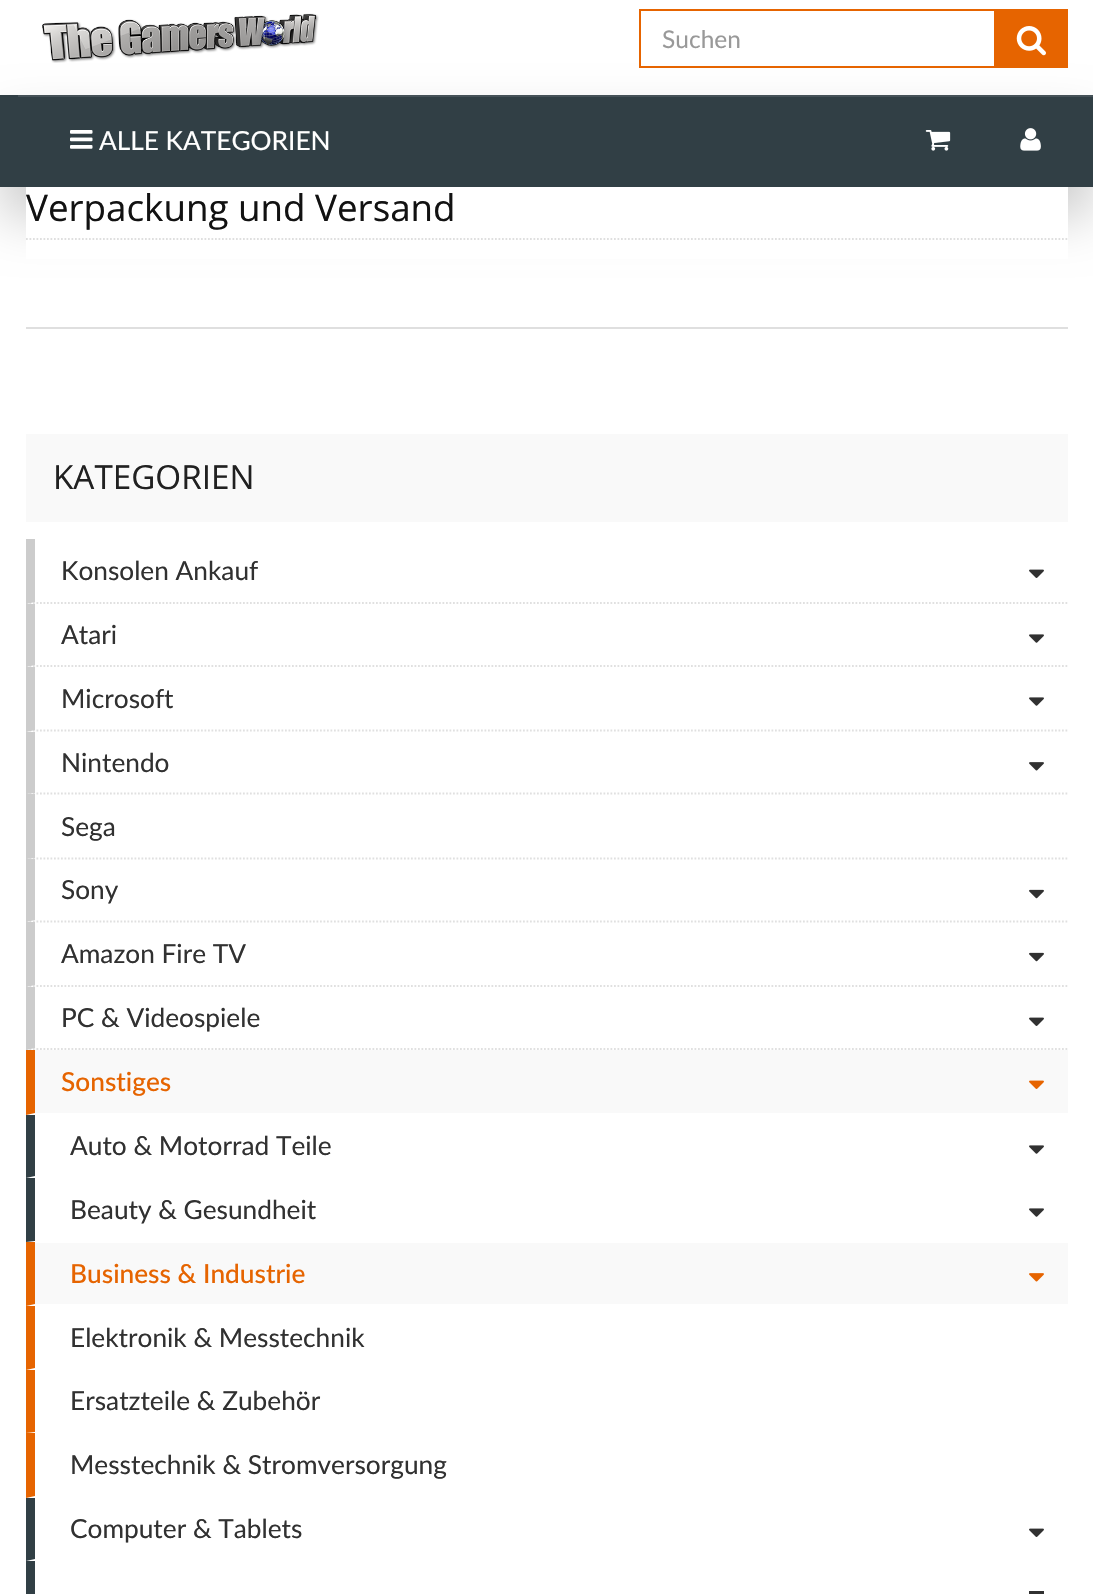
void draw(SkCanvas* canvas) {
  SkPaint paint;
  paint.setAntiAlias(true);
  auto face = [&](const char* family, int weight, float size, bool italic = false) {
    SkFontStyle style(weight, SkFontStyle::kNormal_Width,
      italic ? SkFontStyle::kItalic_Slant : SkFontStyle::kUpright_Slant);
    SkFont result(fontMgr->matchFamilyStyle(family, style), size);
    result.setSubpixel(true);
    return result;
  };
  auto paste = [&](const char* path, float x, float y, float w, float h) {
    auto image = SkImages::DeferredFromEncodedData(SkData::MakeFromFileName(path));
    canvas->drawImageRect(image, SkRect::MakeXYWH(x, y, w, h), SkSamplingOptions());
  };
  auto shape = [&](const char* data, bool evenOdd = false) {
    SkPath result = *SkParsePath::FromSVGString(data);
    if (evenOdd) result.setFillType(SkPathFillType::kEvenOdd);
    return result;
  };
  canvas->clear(0xffffffff);
  paste("img/1.png", 42, 13, 277, 50);
  paint.setColor(0xffe66400);
  canvas->drawRect(SkRect::MakeXYWH(996, 9, 72, 59), paint);
  paste("img/2.png", 1016, 26, 30, 30);
  paint.setColor(0x33000000);
  paint.setMaskFilter(SkMaskFilter::MakeBlur(kNormal_SkBlurStyle, 25.5f));
  canvas->drawRect(SkRect::MakeXYWH(0, 124, 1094, 93), paint);
  paint.setMaskFilter(nullptr);
  paint.setStroke(true);
  paint.setStrokeWidth(2);
  paint.setColor(0xffe66400);
  canvas->drawRect(SkRect::MakeXYWH(640, 10, 355, 57), paint);
  paint.setStroke(false);
  paint.setColor(0xff313f45);
  canvas->drawRect(SkRect::MakeXYWH(0, 95, 1093, 92), paint);
  paint.setColor(0xff465258);
  canvas->drawRect(SkRect::MakeXYWH(18, 95, 1075, 2), paint);
  paste("img/3.png", 70, 130, 23, 19);
  paste("img/4.png", 925, 130, 26, 21);
  paste("img/5.png", 1020, 128, 21, 23);
  paint.setColor(0xffffffff);
  canvas->drawRect(SkRect::MakeXYWH(26, 187, 1042, 72), paint);
  paint.setStroke(true);
  paint.setStrokeWidth(1.8f);
  paint.setColor(0xffdfdfdf);
  paint.setPathEffect(SkDashPathEffect::Make({{1.75f, 1.75f}}, 0));
  canvas->drawPath(shape("M26 239H1067.5"), paint);
  paint.setPathEffect(nullptr);
  paint.setStroke(false);
  canvas->drawRect(SkRect::MakeXYWH(26, 327, 1042, 2), paint);
  paint.setColor(0xfff9f9f9);
  canvas->drawRect(SkRect::MakeXYWH(26, 434, 1042, 88), paint);
  paint.setStroke(true);
  paint.setColor(0xffe0e0e0);
  paint.setPathEffect(SkDashPathEffect::Make({{1.75f, 1.75f}}, 0));
  canvas->drawPath(shape("M26 603H1067.5"), paint);
  paint.setPathEffect(nullptr);
  paint.setStroke(false);
  paint.setColor(0xffcccccc);
  canvas->drawPath(shape("M26 604V539H35V602Z"), paint);
  paste("img/6.png", 1029, 569, 15, 9);
  paint.setStroke(true);
  paint.setColor(0xffe0e0e0);
  paint.setPathEffect(SkDashPathEffect::Make({{1.75f, 1.75f}}, 0));
  canvas->drawPath(shape("M26 666H1067.5"), paint);
  paint.setPathEffect(nullptr);
  paint.setStroke(false);
  paint.setColor(0xffcccccc);
  canvas->drawPath(shape("M26 667V604H35V665Z"), paint);
  paste("img/7.png", 1029, 634, 15, 9);
  paint.setStroke(true);
  paint.setColor(0xffe0e0e0);
  paint.setPathEffect(SkDashPathEffect::Make({{1.75f, 1.75f}}, 0));
  canvas->drawPath(shape("M26 730.5H1067.5"), paint);
  paint.setPathEffect(nullptr);
  paint.setStroke(false);
  paint.setColor(0xffcccccc);
  canvas->drawPath(shape("M26 732V667H35V730Z"), paint);
  paste("img/7.png", 1029, 697, 15, 9);
  paint.setStroke(true);
  paint.setColor(0xffe0e0e0);
  paint.setPathEffect(SkDashPathEffect::Make({{1.75f, 1.75f}}, 0));
  canvas->drawPath(shape("M26 793.5H1067.5"), paint);
  paint.setPathEffect(nullptr);
  paint.setStroke(false);
  paint.setColor(0xffcccccc);
  canvas->drawPath(shape("M26 794V732H35V793Z"), paint);
  paste("img/8.png", 1029, 762, 15, 9);
  paint.setStroke(true);
  paint.setColor(0xffe0e0e0);
  paint.setPathEffect(SkDashPathEffect::Make({{1.75f, 1.75f}}, 0));
  canvas->drawPath(shape("M26 858.5H1067.5"), paint);
  paint.setPathEffect(nullptr);
  paint.setStroke(false);
  paint.setColor(0xffcccccc);
  canvas->drawPath(shape("M26 859V794H35V858Z"), paint);
  paint.setStroke(true);
  paint.setColor(0xffe0e0e0);
  paint.setPathEffect(SkDashPathEffect::Make({{1.75f, 1.75f}}, 0));
  canvas->drawPath(shape("M26 921.5H1067.5"), paint);
  paint.setPathEffect(nullptr);
  paint.setStroke(false);
  paint.setColor(0xffcccccc);
  canvas->drawPath(shape("M26 922V859H35V920Z"), paint);
  paste("img/9.png", 1029, 889, 15, 10);
  paint.setStroke(true);
  paint.setColor(0xffe0e0e0);
  paint.setPathEffect(SkDashPathEffect::Make({{1.75f, 1.75f}}, 0));
  canvas->drawPath(shape("M26 986H1067.5"), paint);
  paint.setPathEffect(nullptr);
  paint.setStroke(false);
  paint.setColor(0xffcccccc);
  canvas->drawPath(shape("M26 987V922H35V985Z"), paint);
  paste("img/9.png", 1029, 952, 15, 10);
  paint.setStroke(true);
  paint.setColor(0xffe0e0e0);
  paint.setPathEffect(SkDashPathEffect::Make({{1.75f, 1.75f}}, 0));
  canvas->drawPath(shape("M26 1049H1067.5"), paint);
  paint.setPathEffect(nullptr);
  paint.setStroke(false);
  paint.setColor(0xffcccccc);
  canvas->drawPath(shape("M26 1050V987H35V1048Z"), paint);
  paste("img/6.png", 1029, 1017, 15, 9);
  paint.setColor(0xfff9f9f9);
  canvas->drawRect(SkRect::MakeXYWH(26, 1050, 1042, 65), paint);
  paint.setColor(0xffffffff);
  canvas->drawPath(shape("M1068 1115H26L35 1113H1068Z"), paint);
  paint.setColor(0xffe66400);
  canvas->drawPath(shape("M26 1115V1050H35V1113Z"), paint);
  paste("img/10.png", 1029, 1080, 15, 9);
  paint.setColor(0xff313f45);
  canvas->drawPath(shape("M26 1178V1115H35V1176Z"), paint);
  paste("img/7.png", 1029, 1145, 15, 9);
  canvas->drawPath(shape("M26 1242V1178H35V1241Z"), paint);
  paste("img/7.png", 1029, 1208, 15, 9);
  paint.setColor(0xfff9f9f9);
  canvas->drawRect(SkRect::MakeXYWH(26, 1243, 1042, 63), paint);
  paint.setColor(0xffffffff);
  canvas->drawPath(shape("M1068 1306H26L35 1304H1068Z"), paint);
  paint.setColor(0xffe66400);
  canvas->drawPath(shape("M26 1306V1242H35V1304Z"), paint);
  paste("img/11.png", 1029, 1273, 15, 9);
  canvas->drawPath(shape("M26 1370V1306H35V1368Z"), paint);
  canvas->drawPath(shape("M26 1433V1370H35V1432Z"), paint);
  canvas->drawPath(shape("M26 1498V1433H35V1496Z"), paint);
  paint.setColor(0xff313f45);
  canvas->drawPath(shape("M26 1561V1498H35V1559Z"), paint);
  paste("img/6.png", 1029, 1528, 15, 9);
  canvas->drawPath(shape("M26 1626V1561H35V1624Z"), paint);
  paint.setColor(0xff313131);
  canvas->drawRect(SkRect::MakeXYWH(1029, 1591, 15, 3), paint);
  auto f0 = face("Lato", 400, 24.5f);
  paint.setColor(0xff999999);
  canvas->drawString("Suchen", 662, 48, f0, paint);
  auto f1 = face("Lato", 400, 26.25f);
  paint.setColor(0xffffffff);
  canvas->drawString("ALLE KATEGORIEN", 99, 150, f1, paint);
  auto f2 = face("Open Sans", 400, 36.75f);
  paint.setColor(0xff121212);
  canvas->drawString("Verpackung und Versand", 26, 221, f2, paint);
  auto f3 = face("Open Sans", 400, 33.25f);
  paint.setColor(0xff212121);
  canvas->drawString("KATEGORIEN", 53, 489, f3, paint);
  paint.setColor(0xff313131);
  {
    const struct { const char* s; float x, y; } items[] = {
      {"Konsolen Ankauf", 61, 580},
      {"Atari", 61, 644},
      {"Microsoft", 61, 708},
      {"Nintendo", 61, 772},
      {"Sega", 61, 836},
      {"Sony", 61, 899},
      {"Amazon Fire TV", 61, 963},
      {"PC & Videospiele", 61, 1027},
    };
    for (auto [s, x, y] : items) {
      canvas->drawString(s, x, y, f1, paint);
    }
  }
  auto f4 = face("Lato", 500, 26.25f);
  paint.setColor(0xffe66400);
  canvas->drawString("Sonstiges", 61, 1091, f4, paint);
  paint.setColor(0xff313131);
  canvas->drawString("Auto & Motorrad Teile", 70, 1155, f1, paint);
  canvas->drawString("Beauty & Gesundheit", 70, 1219, f1, paint);
  paint.setColor(0xffe66400);
  canvas->drawString("Business & Industrie", 70, 1283, f4, paint);
  paint.setColor(0xff313131);
  {
    const struct { const char* s; float x, y; } items[] = {
      {"Elektronik & Messtechnik", 70, 1347},
      {"Ersatzteile & Zubehör", 70, 1410},
      {"Messtechnik & Stromversorgung", 70, 1474},
      {"Computer & Tablets", 70, 1538},
    };
    for (auto [s, x, y] : items) {
      canvas->drawString(s, x, y, f1, paint);
    }
  }
}
